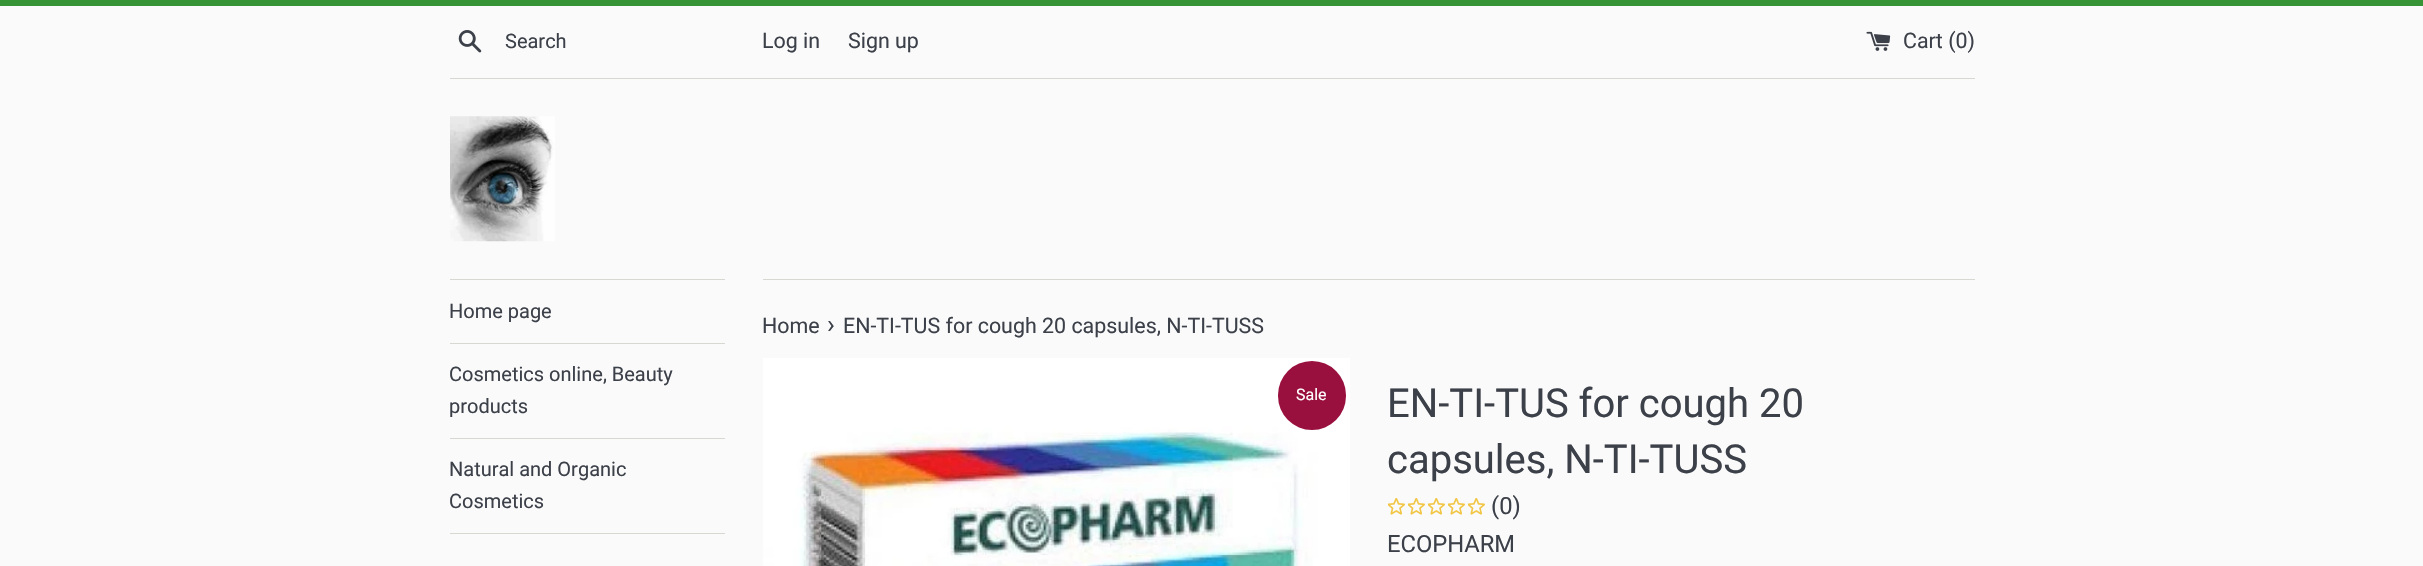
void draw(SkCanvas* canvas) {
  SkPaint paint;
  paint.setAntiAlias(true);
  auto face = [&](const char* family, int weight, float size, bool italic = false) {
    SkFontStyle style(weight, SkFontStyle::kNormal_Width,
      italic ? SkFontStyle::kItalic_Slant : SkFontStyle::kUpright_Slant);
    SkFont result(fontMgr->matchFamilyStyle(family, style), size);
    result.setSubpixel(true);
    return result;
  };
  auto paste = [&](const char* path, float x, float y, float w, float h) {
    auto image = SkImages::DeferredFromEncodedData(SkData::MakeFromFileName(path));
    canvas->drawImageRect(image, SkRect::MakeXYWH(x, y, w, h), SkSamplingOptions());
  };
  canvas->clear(0xfffafafa);
  paint.setColor(0xff369436);
  canvas->drawRect(SkRect::MakeXYWH(0, 0, 2423, 6), paint);
  paste("img/1.png", 458, 30, 24, 23);
  paste("img/2.png", 1866, 31, 25, 20);
  paint.setColor(0xffd7d8d2);
  canvas->drawRect(SkRect::MakeXYWH(450, 78, 1525, 1), paint);
  paste("img/3.png", 450, 116, 105, 126);
  {
    const struct { float x, y, w, h; SkColor color; } items[] = {
      {450, 279, 275, 1, 0xffd7d8d2},
      {450, 343, 275, 1, 0xffd7d8d2},
      {450, 438, 275, 1, 0xffd7d8d2},
      {450, 533, 275, 1, 0xffd7d8d2},
      {763, 279, 1212, 1, 0xffd7d8d2},
    };
    for (auto [x, y, w, h, color] : items) {
      paint.setColor(color);
      canvas->drawRect(SkRect::MakeXYWH(x, y, w, h), paint);
    }
  }
  paste("img/4.png", 763, 358, 587, 208);
  paint.setColor(0xff990f3d);
  canvas->drawRoundRect(SkRect::MakeXYWH(1278, 361, 68, 69), 34, 34, paint);
  paste("img/5.png", 1388, 498, 17, 17);
  paste("img/5.png", 1408, 498, 17, 17);
  paste("img/5.png", 1428, 498, 17, 17);
  paste("img/5.png", 1448, 498, 17, 17);
  paste("img/5.png", 1468, 498, 17, 17);
  auto f0 = face("Roboto", 400, 20);
  paint.setColor(0xff3c4049);
  canvas->drawString("Search", 505, 48, f0, paint);
  auto f1 = face("Roboto", 400, 21.4f);
  {
    const struct { const char* s; float x, y; } items[] = {
      {"Log in", 762, 48},
      {"Sign up", 848, 48},
      {"Cart (0)", 1903, 48},
    };
    for (auto [s, x, y] : items) {
      canvas->drawString(s, x, y, f1, paint);
    }
  }
  {
    const struct { const char* s; float x, y; } items[] = {
      {"Home page", 449, 318},
      {"Cosmetics online, Beauty", 449, 381},
      {"products", 449, 413},
      {"Natural and Organic", 449, 476},
      {"Cosmetics", 449, 508},
    };
    for (auto [s, x, y] : items) {
      canvas->drawString(s, x, y, f0, paint);
    }
  }
  canvas->drawString("Home", 762, 333, f1, paint);
  auto f2 = face("Roboto", 400, 26);
  canvas->drawString("›", 827, 333, f2, paint);
  canvas->drawString("EN-TI-TUS for cough 20 capsules, N-TI-TUSS", 843, 333, f1, paint);
  auto f3 = face("Roboto", 400, 16);
  paint.setColor(0xffffffff);
  canvas->drawString("Sale", 1296, 400, f3, paint);
  auto f4 = face("Roboto", 400, 40);
  paint.setColor(0xff3c4049);
  canvas->drawString("EN-TI-TUS for cough 20", 1387, 417, f4, paint);
  canvas->drawString("capsules, N-TI-TUSS", 1387, 473, f4, paint);
  auto f5 = face("Roboto", 400, 23.75f);
  canvas->drawString("(0)", 1491, 514, f5, paint);
  canvas->drawString("ECOPHARM", 1387, 552, f5, paint);
}
